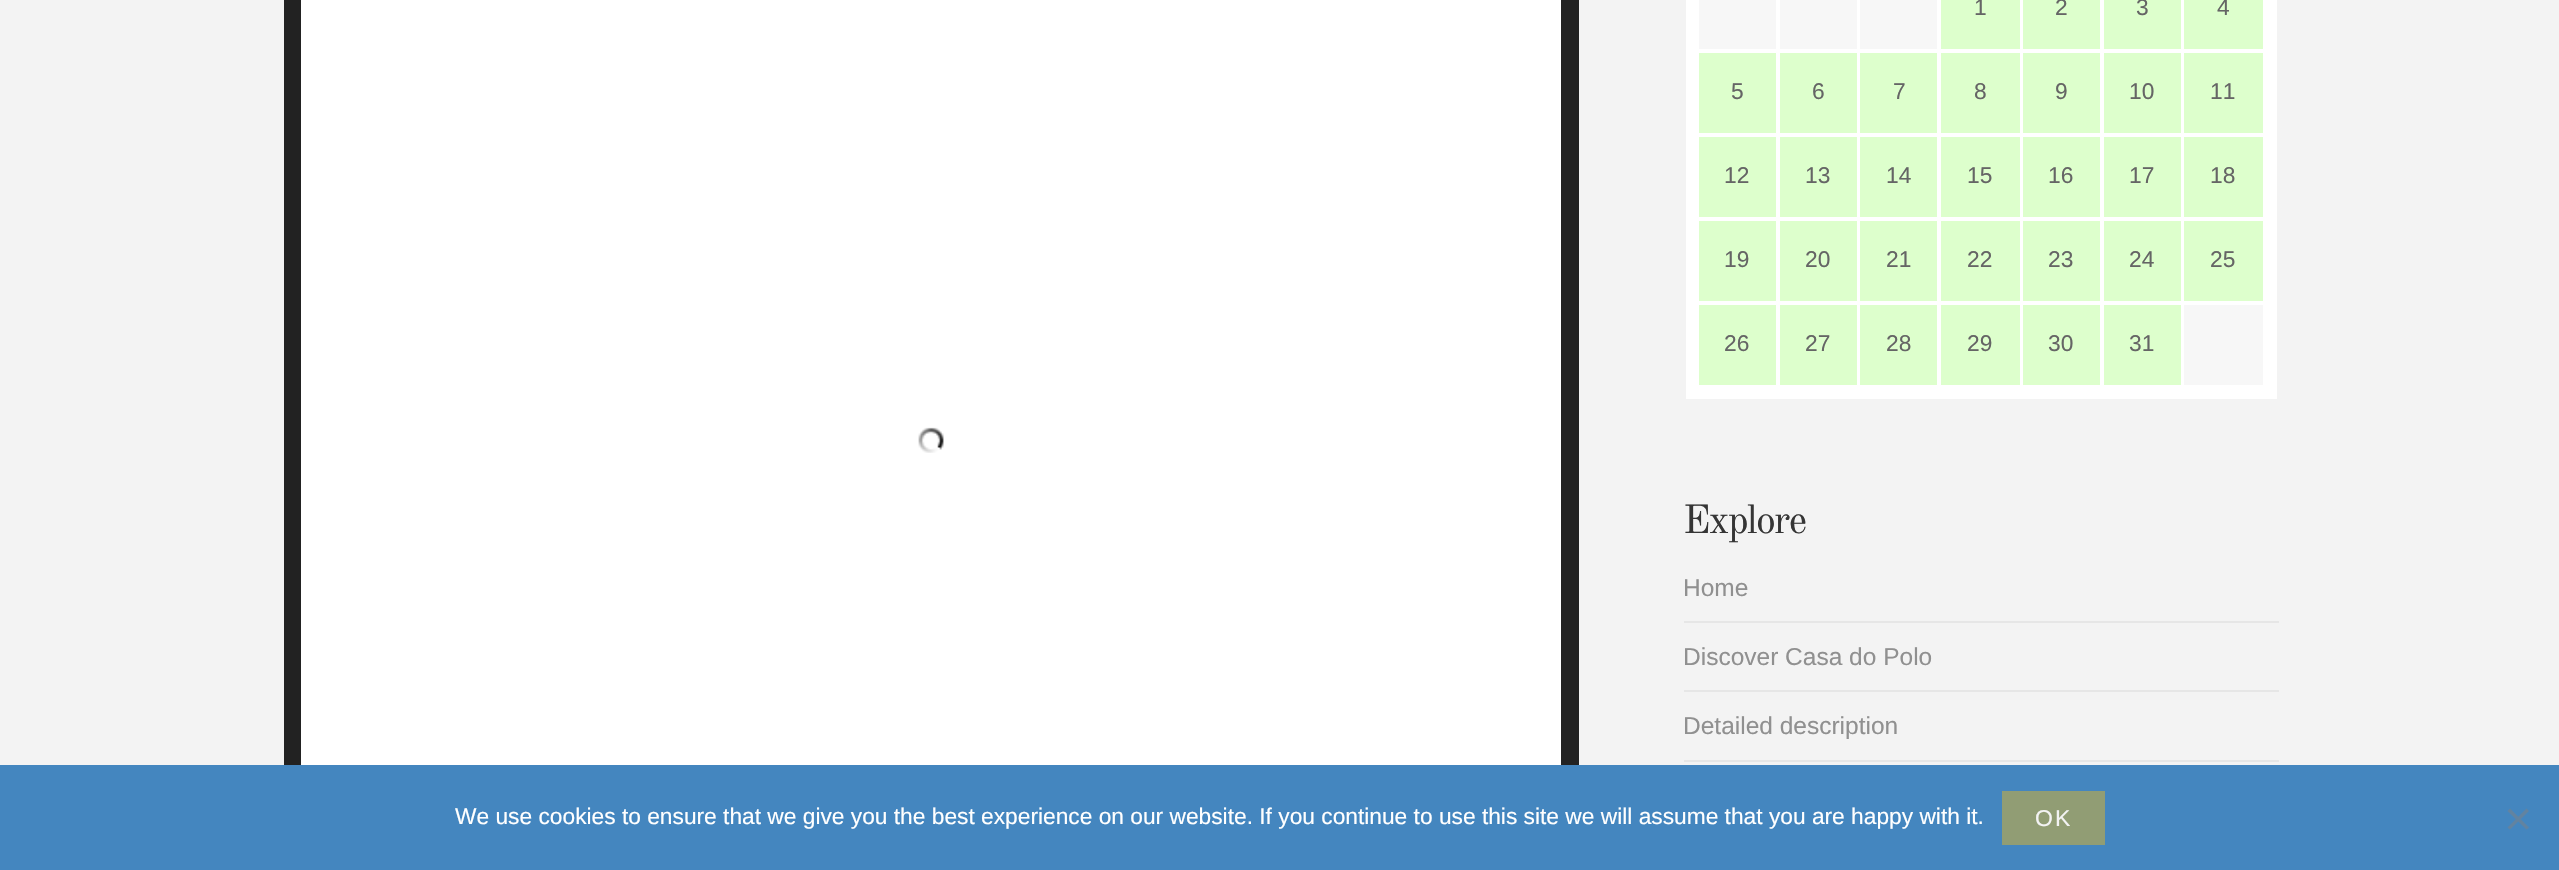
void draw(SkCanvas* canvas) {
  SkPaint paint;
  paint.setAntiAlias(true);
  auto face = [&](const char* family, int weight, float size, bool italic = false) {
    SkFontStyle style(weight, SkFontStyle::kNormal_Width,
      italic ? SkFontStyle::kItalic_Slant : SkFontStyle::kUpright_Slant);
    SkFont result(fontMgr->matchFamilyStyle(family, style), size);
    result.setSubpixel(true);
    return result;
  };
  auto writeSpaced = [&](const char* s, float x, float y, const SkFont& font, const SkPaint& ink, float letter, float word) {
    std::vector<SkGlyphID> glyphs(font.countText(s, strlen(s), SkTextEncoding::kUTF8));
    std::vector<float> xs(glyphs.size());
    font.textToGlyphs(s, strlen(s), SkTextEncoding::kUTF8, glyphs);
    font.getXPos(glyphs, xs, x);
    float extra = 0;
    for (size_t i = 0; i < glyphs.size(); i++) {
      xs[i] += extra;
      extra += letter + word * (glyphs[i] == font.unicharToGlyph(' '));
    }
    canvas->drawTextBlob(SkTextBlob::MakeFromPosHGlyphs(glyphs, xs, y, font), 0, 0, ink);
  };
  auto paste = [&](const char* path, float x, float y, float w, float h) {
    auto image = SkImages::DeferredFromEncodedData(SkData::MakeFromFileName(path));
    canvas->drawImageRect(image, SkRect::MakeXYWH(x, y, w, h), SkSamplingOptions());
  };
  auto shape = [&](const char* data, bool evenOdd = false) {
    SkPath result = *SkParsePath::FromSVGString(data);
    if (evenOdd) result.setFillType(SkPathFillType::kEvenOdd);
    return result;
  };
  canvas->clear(0xfff3f3f3);
  paint.setColor(0xff222222);
  canvas->drawRect(SkRect::MakeXYWH(284, 0, 1295, 765), paint);
  paint.setColor(0xffffffff);
  canvas->drawRect(SkRect::MakeXYWH(301, 0, 1260, 765), paint);
  paste("img/1.png", 918, 427, 26, 26);
  {
    const struct { float x, y, w, h; SkColor color; } items[] = {
      {1686, 0, 591, 399, 0xffffffff},
      {1699, 0, 77, 49, 0xfff7f7f7},
      {1780, 0, 77, 49, 0xfff7f7f7},
      {1860, 0, 77, 49, 0xfff7f7f7},
      {1941, 0, 79, 49, 0xffddffcc},
      {2023, 0, 77, 49, 0xffddffcc},
      {2104, 0, 77, 49, 0xffddffcc},
      {2184, 0, 79, 49, 0xffddffcc},
      {1699, 53, 77, 80, 0xffddffcc},
      {1780, 53, 77, 80, 0xffddffcc},
      {1860, 53, 77, 80, 0xffddffcc},
      {1941, 53, 79, 80, 0xffddffcc},
      {2023, 53, 77, 80, 0xffddffcc},
      {2104, 53, 77, 80, 0xffddffcc},
      {2184, 53, 79, 80, 0xffddffcc},
      {1699, 137, 77, 80, 0xffddffcc},
      {1780, 137, 77, 80, 0xffddffcc},
      {1860, 137, 77, 80, 0xffddffcc},
      {1941, 137, 79, 80, 0xffddffcc},
      {2023, 137, 77, 80, 0xffddffcc},
      {2104, 137, 77, 80, 0xffddffcc},
      {2184, 137, 79, 80, 0xffddffcc},
      {1699, 221, 77, 80, 0xffddffcc},
      {1780, 221, 77, 80, 0xffddffcc},
      {1860, 221, 77, 80, 0xffddffcc},
      {1941, 221, 79, 80, 0xffddffcc},
      {2023, 221, 77, 80, 0xffddffcc},
      {2104, 221, 77, 80, 0xffddffcc},
      {2184, 221, 79, 80, 0xffddffcc},
      {1699, 305, 77, 80, 0xffddffcc},
      {1780, 305, 77, 80, 0xffddffcc},
      {1860, 305, 77, 80, 0xffddffcc},
      {1941, 305, 79, 80, 0xffddffcc},
      {2023, 305, 77, 80, 0xffddffcc},
      {2104, 305, 77, 80, 0xffddffcc},
      {2184, 305, 79, 80, 0xfff7f7f7},
      {1684, 621, 595, 2, 0xffe6e6e6},
      {1684, 690, 595, 2, 0xffe6e6e6},
      {1684, 760, 595, 2, 0xffe6e6e6},
      {0, 765, 2559, 105, 0xff4486bf},
      {2002, 791, 103, 54, 0xff919d74},
    };
    for (auto [x, y, w, h, color] : items) {
      paint.setColor(color);
      canvas->drawRect(SkRect::MakeXYWH(x, y, w, h), paint);
    }
  }
  paint.setColor(0xff6283a0);
  canvas->drawPath(shape("M2526.5 808.5L2529 811L2510 829.5L2507.5 827.5Z"), paint);
  canvas->drawPath(shape("M2507.5 811L2510 808.5L2529 827.5L2526.5 829.5Z"), paint);
  auto f0 = face("Liberation Sans", 400, 22.75f);
  paint.setColor(0xff656565);
  {
    const struct { const char* s; float x, y; } items[] = {
      {"1", 1974, 15},
      {"2", 2055, 15},
      {"3", 2136, 15},
      {"4", 2217, 15},
      {"5", 1731, 99},
      {"6", 1812, 99},
      {"7", 1893, 99},
      {"8", 1974, 99},
      {"9", 2055, 99},
      {"10", 2129, 99},
      {"11", 2210, 99},
      {"12", 1724, 183},
      {"13", 1805, 183},
      {"14", 1886, 183},
      {"15", 1967, 183},
      {"16", 2048, 183},
      {"17", 2129, 183},
      {"18", 2210, 183},
      {"19", 1724, 267},
      {"20", 1805, 267},
      {"21", 1886, 267},
      {"22", 1967, 267},
      {"23", 2048, 267},
      {"24", 2129, 267},
      {"25", 2210, 267},
      {"26", 1724, 351},
      {"27", 1805, 351},
      {"28", 1886, 351},
      {"29", 1967, 351},
      {"30", 2048, 351},
      {"31", 2129, 351},
    };
    for (auto [s, x, y] : items) {
      canvas->drawString(s, x, y, f0, paint);
    }
  }
  auto f1 = face("Old Standard TT", 400, 40);
  paint.setColor(0xff353535);
  writeSpaced("Explore", 1683, 533, f1, paint, -1.75f, 0);
  auto f2 = face("Liberation Sans", 400, 24.5f);
  paint.setColor(0xff909090);
  {
    const struct { const char* s; float x, y; } items[] = {
      {"Home", 1683, 596},
      {"Discover Casa do Polo", 1683, 665},
      {"Detailed description", 1683, 734},
    };
    for (auto [s, x, y] : items) {
      canvas->drawString(s, x, y, f2, paint);
    }
  }
  paint.setColor(0xffffffff);
  canvas->drawString("We use cookies to ensure that we give you the best experience on our website. If you continue to use this site we will assume that you are happy with it.", 455, 824, f0, paint);
  auto f3 = face("Liberation Sans", 400, 23);
  paint.setColor(0xfff3f3f3);
  writeSpaced("OK", 2035, 826, f3, paint, 2, 0);
}
